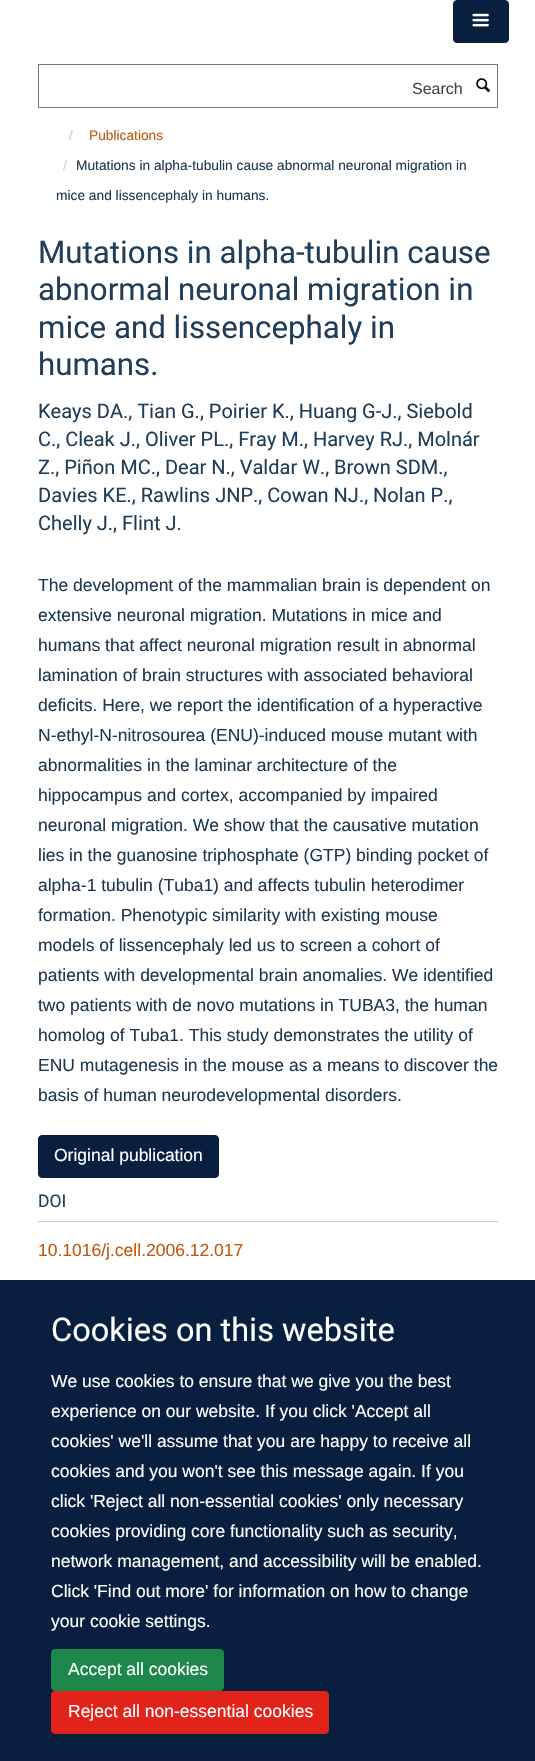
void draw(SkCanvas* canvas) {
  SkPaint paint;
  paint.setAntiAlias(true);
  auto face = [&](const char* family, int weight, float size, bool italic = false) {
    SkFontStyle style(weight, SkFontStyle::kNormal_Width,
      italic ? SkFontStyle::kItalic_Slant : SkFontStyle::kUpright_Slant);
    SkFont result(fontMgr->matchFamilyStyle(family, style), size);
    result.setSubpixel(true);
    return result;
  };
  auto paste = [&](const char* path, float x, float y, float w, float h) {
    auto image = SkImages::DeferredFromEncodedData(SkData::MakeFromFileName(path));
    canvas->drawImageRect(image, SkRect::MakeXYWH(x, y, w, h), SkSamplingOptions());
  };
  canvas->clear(0xffffffff);
  paint.setColor(0xff091f40);
  canvas->drawRoundRect(SkRect::MakeXYWH(453.5f, 0.5f, 55, 42), 3.5f, 3.5f, paint);
  paint.setStroke(true);
  paint.setStrokeWidth(1);
  canvas->drawRoundRect(SkRect::MakeXYWH(453.5f, 0.5f, 55, 42), 3.5f, 3.5f, paint);
  paste("img/1.png", 472, 13, 17, 14);
  paint.setColor(0xff777777);
  canvas->drawRect(SkRect::MakeXYWH(38.5f, 64.5f, 459, 43), paint);
  paste("img/2.png", 476, 78, 14, 14);
  paint.setStroke(false);
  paint.setColor(0xff091f40);
  canvas->drawRoundRect(SkRect::MakeXYWH(38.5f, 1135.5f, 180, 42), 3.5f, 3.5f, paint);
  paint.setStroke(true);
  canvas->drawRoundRect(SkRect::MakeXYWH(38.5f, 1135.5f, 180, 42), 3.5f, 3.5f, paint);
  paint.setStroke(false);
  paint.setColor(0xffc6cacf);
  canvas->drawRect(SkRect::MakeXYWH(38, 1221, 460, 1), paint);
  paint.setColor(0xff091f40);
  canvas->drawRect(SkRect::MakeXYWH(0, 1280, 535, 481), paint);
  paint.setColor(0xff1e874b);
  canvas->drawRoundRect(SkRect::MakeXYWH(51.5f, 1649.5f, 172, 41), 3.5f, 3.5f, paint);
  paint.setStroke(true);
  canvas->drawRoundRect(SkRect::MakeXYWH(51.5f, 1649.5f, 172, 41), 3.5f, 3.5f, paint);
  paint.setStroke(false);
  paint.setColor(0xffe2231a);
  canvas->drawRoundRect(SkRect::MakeXYWH(51.5f, 1691.5f, 277, 42), 3.5f, 3.5f, paint);
  paint.setStroke(true);
  canvas->drawRoundRect(SkRect::MakeXYWH(51.5f, 1691.5f, 277, 42), 3.5f, 3.5f, paint);
  auto f0 = face("Liberation Sans", 400, 16);
  paint.setStroke(false);
  paint.setColor(0xff444444);
  canvas->drawString("Search", 412, 94, f0, paint);
  auto f1 = face("Liberation Sans", 400, 13.75f);
  paint.setColor(0xffcccccc);
  canvas->drawString("/", 69, 140, f1, paint);
  paint.setColor(0xffc1570e);
  canvas->drawString("Publications", 89, 140, f1, paint);
  paint.setColor(0xffcccccc);
  canvas->drawString("/", 63, 170, f1, paint);
  paint.setColor(0xff1d3850);
  canvas->drawString("Mutations in alpha-tubulin cause abnormal neuronal migration in", 76, 170, f1, paint);
  canvas->drawString("mice and lissencephaly in humans.", 56, 200, f1, paint);
  auto f2 = face("Heebo", 400, 31.25f);
  paint.setColor(0xff203e58);
  {
    const struct { const char* s; float x, y; } items[] = {
      {"Mutations in alpha-tubulin cause", 38, 263},
      {"abnormal neuronal migration in", 38, 300},
      {"mice and lissencephaly in", 38, 338},
      {"humans.", 38, 375},
    };
    for (auto [s, x, y] : items) {
      canvas->drawString(s, x, y, f2, paint);
    }
  }
  auto f3 = face("Heebo", 400, 20);
  {
    const struct { const char* s; float x, y; } items[] = {
      {"Keays DA., Tian G., Poirier K., Huang G-J., Siebold", 38, 418},
      {"C., Cleak J., Oliver PL., Fray M., Harvey RJ., Molnár", 38, 446},
      {"Z., Piñon MC., Dear N., Valdar W., Brown SDM.,", 38, 474},
      {"Davies KE., Rawlins JNP., Cowan NJ., Nolan P.,", 38, 502},
      {"Chelly J., Flint J.", 38, 530},
    };
    for (auto [s, x, y] : items) {
      canvas->drawString(s, x, y, f3, paint);
    }
  }
  auto f4 = face("Liberation Sans", 400, 17.5f);
  paint.setColor(0xff1d3850);
  {
    const struct { const char* s; float x, y; } items[] = {
      {"The development of the mammalian brain is dependent on", 38, 591},
      {"extensive neuronal migration. Mutations in mice and", 38, 621},
      {"humans that affect neuronal migration result in abnormal", 38, 651},
      {"lamination of brain structures with associated behavioral", 38, 681},
      {"deficits. Here, we report the identification of a hyperactive", 38, 711},
      {"N-ethyl-N-nitrosourea (ENU)-induced mouse mutant with", 38, 741},
      {"abnormalities in the laminar architecture of the", 38, 771},
      {"hippocampus and cortex, accompanied by impaired", 38, 801},
      {"neuronal migration. We show that the causative mutation", 38, 831},
      {"lies in the guanosine triphosphate (GTP) binding pocket of", 38, 861},
      {"alpha-1 tubulin (Tuba1) and affects tubulin heterodimer", 38, 891},
      {"formation. Phenotypic similarity with existing mouse", 38, 921},
      {"models of lissencephaly led us to screen a cohort of", 38, 951},
      {"patients with developmental brain anomalies. We identified", 38, 981},
      {"two patients with de novo mutations in TUBA3, the human", 38, 1011},
      {"homolog of Tuba1. This study demonstrates the utility of", 38, 1041},
      {"ENU mutagenesis in the mouse as a means to discover the", 38, 1071},
      {"basis of human neurodevelopmental disorders.", 38, 1101},
    };
    for (auto [s, x, y] : items) {
      canvas->drawString(s, x, y, f4, paint);
    }
  }
  paint.setColor(0xffffffff);
  canvas->drawString("Original publication", 54, 1161, f4, paint);
  auto f5 = face("Heebo", 400, 17.5f);
  paint.setColor(0xff203e58);
  canvas->drawString("DOI", 38, 1207, f5, paint);
  paint.setColor(0xffc1570e);
  canvas->drawString("10.1016/j.cell.2006.12.017", 38, 1256, f4, paint);
  auto f6 = face("Heebo", 400, 32.5f);
  paint.setColor(0xffffffff);
  canvas->drawString("Cookies on this website", 51, 1341, f6, paint);
  {
    const struct { const char* s; float x, y; } items[] = {
      {"We use cookies to ensure that we give you the best", 51, 1387},
      {"experience on our website. If you click 'Accept all", 51, 1417},
      {"cookies' we'll assume that you are happy to receive all", 51, 1447},
      {"cookies and you won't see this message again. If you", 51, 1477},
      {"click 'Reject all non-essential cookies' only necessary", 51, 1507},
      {"cookies providing core functionality such as security,", 51, 1537},
      {"network management, and accessibility will be enabled.", 51, 1567},
      {"Click 'Find out more' for information on how to change", 51, 1597},
      {"your cookie settings.", 51, 1627},
      {"Accept all cookies", 68, 1675},
      {"Reject all non-essential cookies", 68, 1717},
    };
    for (auto [s, x, y] : items) {
      canvas->drawString(s, x, y, f4, paint);
    }
  }
}
